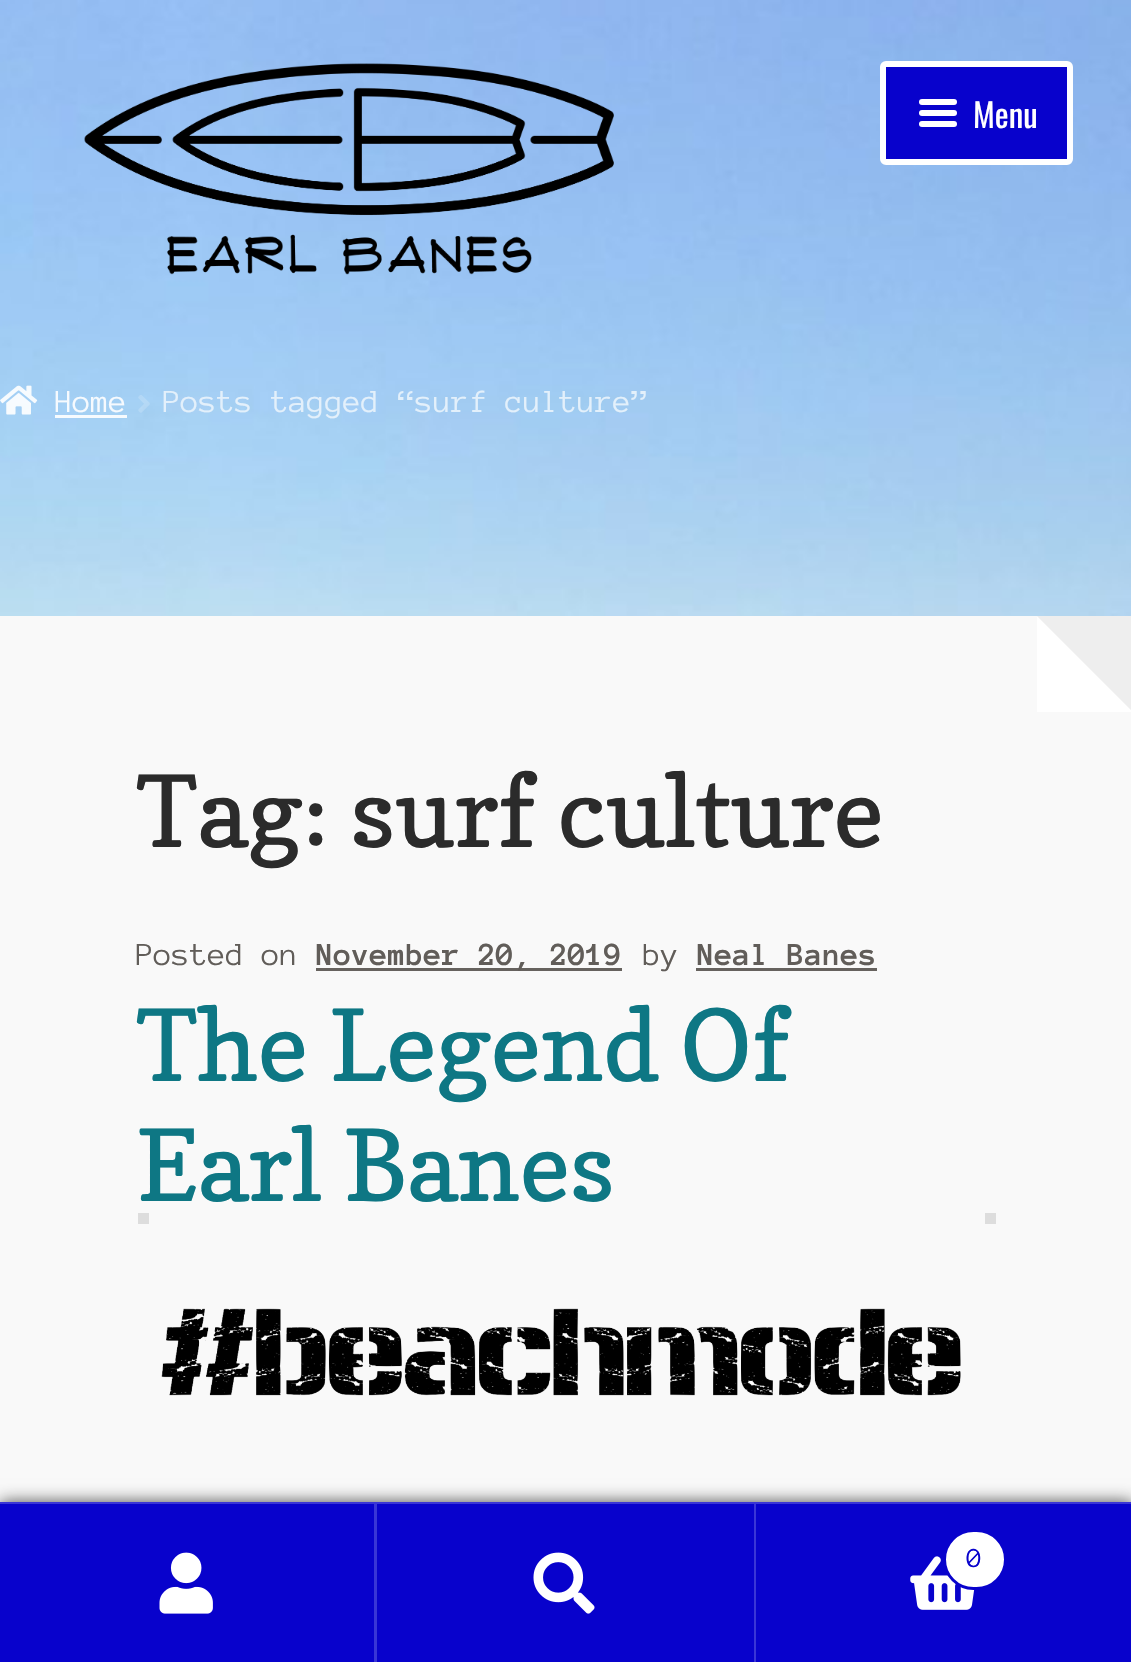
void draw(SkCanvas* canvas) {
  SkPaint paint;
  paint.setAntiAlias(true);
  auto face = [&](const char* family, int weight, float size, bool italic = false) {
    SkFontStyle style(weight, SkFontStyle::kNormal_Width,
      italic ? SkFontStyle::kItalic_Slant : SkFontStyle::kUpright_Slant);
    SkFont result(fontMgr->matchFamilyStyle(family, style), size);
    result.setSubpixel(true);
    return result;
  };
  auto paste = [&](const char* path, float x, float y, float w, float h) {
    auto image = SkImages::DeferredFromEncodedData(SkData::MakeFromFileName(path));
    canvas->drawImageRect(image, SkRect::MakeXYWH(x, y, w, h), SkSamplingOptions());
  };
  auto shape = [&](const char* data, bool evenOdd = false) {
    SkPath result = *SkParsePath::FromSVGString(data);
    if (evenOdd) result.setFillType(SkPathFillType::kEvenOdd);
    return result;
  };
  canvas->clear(0xffffffff);
  paste("img/1.png", 0, 0, 1131, 616);
  paste("img/2.png", 84, 63, 530, 212);
  paint.setColor(0xff0802cc);
  canvas->drawRoundRect(SkRect::MakeXYWH(883, 64, 187, 98), 3, 3, paint);
  paint.setStroke(true);
  paint.setStrokeWidth(6);
  paint.setColor(0xffffffff);
  canvas->drawRoundRect(SkRect::MakeXYWH(883, 64, 187, 98), 3, 3, paint);
  paint.setStroke(false);
  canvas->drawRoundRect(SkRect::MakeXYWH(919, 99, 38, 6), 3, 3, paint);
  canvas->drawRoundRect(SkRect::MakeXYWH(919, 110, 38, 6), 3, 3, paint);
  canvas->drawRoundRect(SkRect::MakeXYWH(919, 121, 38, 6), 3, 3, paint);
  paste("img/3.png", 0, 385, 38, 30);
  paint.setColor(0xe6ffffff);
  canvas->drawRect(SkRect::MakeXYWH(55, 415, 72, 3), paint);
  paste("img/4.png", 138, 395, 12, 18);
  paint.setColor(0xfff9f9f9);
  canvas->drawRect(SkRect::MakeXYWH(0, 616, 1131, 886), paint);
  paint.setColor(0xffffffff);
  canvas->drawPath(shape("M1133 712H1037V616Z"), paint);
  paint.setColor(0xffeeeeee);
  canvas->drawPath(shape("M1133 616V712L1037 616Z"), paint);
  {
    const struct { float x, y, w, h; SkColor color; } items[] = {
      {316, 968, 306, 3, 0xff66625e},
      {696, 968, 181, 3, 0xff66625e},
      {138, 1213, 11, 11, 0xffdddddd},
      {985, 1213, 11, 11, 0xffdddddd},
    };
    for (auto [x, y, w, h, color] : items) {
      paint.setColor(color);
      canvas->drawRect(SkRect::MakeXYWH(x, y, w, h), paint);
    }
  }
  paste("img/5.png", 161, 1308, 800, 88);
  paint.setColor(0xb3000000);
  paint.setMaskFilter(SkMaskFilter::MakeBlur(kNormal_SkBlurStyle, 8));
  canvas->drawRect(SkRect::MakeXYWH(0, 1502, 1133, 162), paint);
  paint.setMaskFilter(nullptr);
  {
    const struct { float x, y, w, h; SkColor color; } items[] = {
      {0, 1502, 1131, 2, 0xff3935d6},
      {0, 1504, 374, 158, 0xff0802cc},
      {374, 1504, 3, 158, 0xff3935d6},
    };
    for (auto [x, y, w, h, color] : items) {
      paint.setColor(color);
      canvas->drawRect(SkRect::MakeXYWH(x, y, w, h), paint);
    }
  }
  paste("img/6.png", 159, 1552, 54, 62);
  paint.setColor(0xff0802cc);
  canvas->drawRect(SkRect::MakeXYWH(377, 1504, 754, 158), paint);
  paint.setColor(0x33ffffff);
  canvas->drawRect(SkRect::MakeXYWH(754, 1504, 2, 158), paint);
  paste("img/7.png", 533, 1552, 62, 62);
  paste("img/8.png", 910, 1556, 65, 54);
  paint.setColor(0xffffffff);
  canvas->drawRoundRect(SkRect::MakeXYWH(944.5f, 1530.5f, 61, 58), 29, 29, paint);
  paint.setStroke(true);
  paint.setStrokeWidth(3);
  paint.setColor(0xff0802cc);
  canvas->drawRoundRect(SkRect::MakeXYWH(944.5f, 1530.5f, 61, 58), 29, 29, paint);
  auto f0 = face("Oswald", 400, 33);
  paint.setStroke(false);
  paint.setColor(0xffffffff);
  canvas->drawString("Menu", 973, 128, f0, paint);
  auto f1 = face("Anonymous Pro", 400, 33);
  paint.setColor(0xfff6fafe);
  canvas->drawString("Home", 55, 412, f1, paint);
  paint.setColor(0xffe3f0fb);
  canvas->drawString("Posts tagged “surf culture”", 163, 412, f1, paint);
  auto f2 = face("Copse", 400, 98.75f);
  paint.setColor(0xff2b2b2b);
  canvas->drawString("Tag: surf culture", 136, 847, f2, paint);
  paint.setColor(0xff615d59);
  canvas->drawString("Posted on", 136, 965, f1, paint);
  auto f3 = face("Anonymous Pro", 700, 33);
  canvas->drawString("November 20, 2019", 316, 965, f3, paint);
  canvas->drawString("by", 643, 965, f1, paint);
  canvas->drawString("Neal Banes", 697, 965, f3, paint);
  paint.setColor(0xff0e7784);
  canvas->drawString("The Legend Of", 136, 1081, f2, paint);
  canvas->drawString("Earl Banes", 136, 1201, f2, paint);
  auto f4 = face("Anonymous Pro", 400, 28);
  paint.setColor(0xff0802cc);
  canvas->drawString("0", 967, 1567, f4, paint);
}
